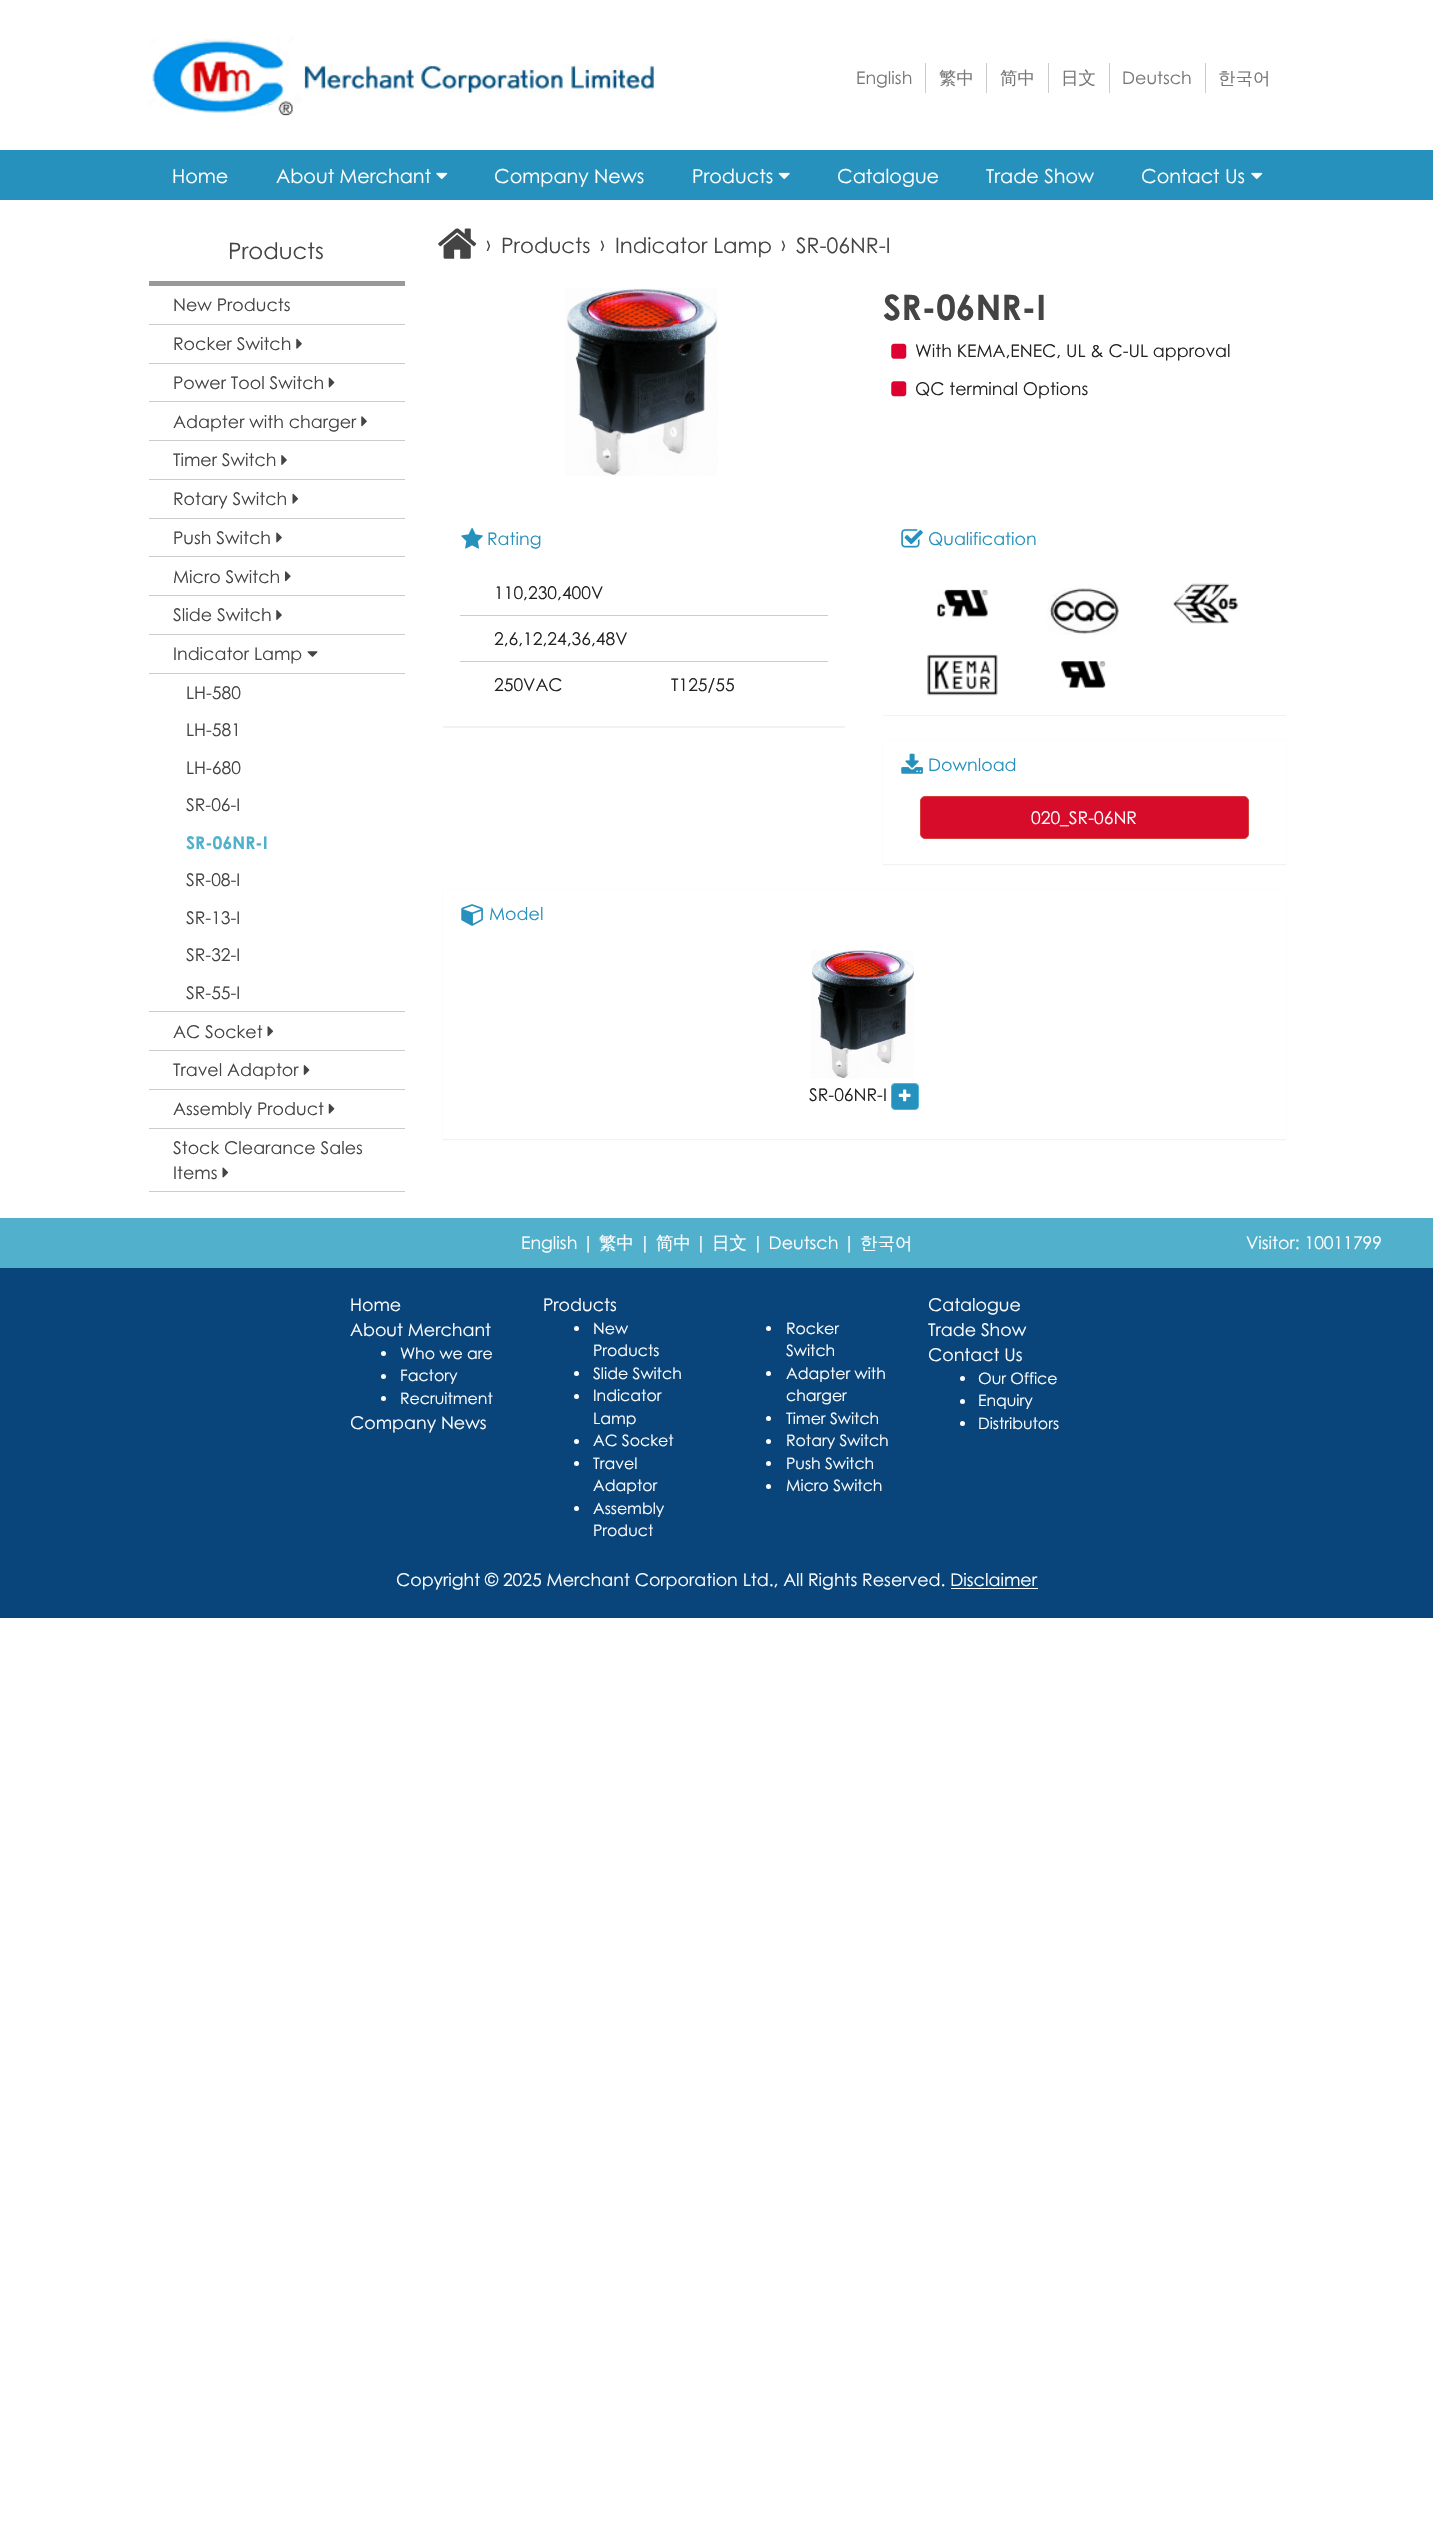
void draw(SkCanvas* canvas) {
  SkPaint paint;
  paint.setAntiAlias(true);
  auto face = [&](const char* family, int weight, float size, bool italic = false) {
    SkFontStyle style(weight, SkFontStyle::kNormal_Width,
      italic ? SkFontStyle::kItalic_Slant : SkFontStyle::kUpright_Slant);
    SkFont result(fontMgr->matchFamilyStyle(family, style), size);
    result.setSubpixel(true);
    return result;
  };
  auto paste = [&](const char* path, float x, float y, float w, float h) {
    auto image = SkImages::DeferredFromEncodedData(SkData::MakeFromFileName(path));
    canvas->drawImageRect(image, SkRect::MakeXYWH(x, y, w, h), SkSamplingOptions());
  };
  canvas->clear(0xffffffff);
  paste("img/1.png", 148, 37, 506, 79);
  {
    const struct { float x, y, w, h; SkColor color; } items[] = {
      {925, 63, 1, 30, 0xffcccccc},
      {986, 63, 1, 30, 0xffcccccc},
      {1048, 63, 1, 30, 0xffcccccc},
      {1109, 63, 1, 30, 0xffcccccc},
      {1205, 63, 1, 30, 0xffcccccc},
      {0, 150, 1433, 50, 0xff2691bc},
    };
    for (auto [x, y, w, h, color] : items) {
      paint.setColor(color);
      canvas->drawRect(SkRect::MakeXYWH(x, y, w, h), paint);
    }
  }
  paste("img/2.png", 436, 172, 12, 7);
  paste("img/3.png", 778, 172, 12, 7);
  paste("img/2.png", 1251, 172, 12, 7);
  {
    const struct { float x, y, w, h; SkColor color; } items[] = {
      {149, 281, 256, 5, 0xff999999},
      {149, 324, 256, 1, 0xffcccccc},
      {149, 363, 256, 1, 0xffcccccc},
    };
    for (auto [x, y, w, h, color] : items) {
      paint.setColor(color);
      canvas->drawRect(SkRect::MakeXYWH(x, y, w, h), paint);
    }
  }
  paste("img/4.png", 296, 338, 6, 11);
  canvas->drawRect(SkRect::MakeXYWH(149, 401, 256, 1), paint);
  paste("img/5.png", 328, 377, 7, 11);
  canvas->drawRect(SkRect::MakeXYWH(149, 440, 256, 1), paint);
  paste("img/6.png", 361, 416, 6, 11);
  canvas->drawRect(SkRect::MakeXYWH(149, 479, 256, 1), paint);
  paste("img/7.png", 281, 455, 6, 10);
  canvas->drawRect(SkRect::MakeXYWH(149, 518, 256, 1), paint);
  paste("img/8.png", 292, 493, 7, 11);
  canvas->drawRect(SkRect::MakeXYWH(149, 556, 256, 1), paint);
  paste("img/9.png", 276, 532, 6, 11);
  canvas->drawRect(SkRect::MakeXYWH(149, 595, 256, 1), paint);
  paste("img/10.png", 285, 571, 6, 11);
  canvas->drawRect(SkRect::MakeXYWH(149, 634, 256, 1), paint);
  paste("img/7.png", 276, 610, 6, 10);
  canvas->drawRect(SkRect::MakeXYWH(149, 673, 256, 1), paint);
  paste("img/11.png", 307, 651, 11, 6);
  canvas->drawRect(SkRect::MakeXYWH(149, 1011, 256, 1), paint);
  canvas->drawRect(SkRect::MakeXYWH(149, 1050, 256, 1), paint);
  paste("img/12.png", 267, 1026, 7, 11);
  canvas->drawRect(SkRect::MakeXYWH(149, 1089, 256, 1), paint);
  paste("img/13.png", 303, 1065, 7, 10);
  canvas->drawRect(SkRect::MakeXYWH(149, 1128, 256, 1), paint);
  paste("img/14.png", 328, 1103, 7, 11);
  canvas->drawRect(SkRect::MakeXYWH(149, 1191, 256, 1), paint);
  paste("img/15.png", 222, 1167, 7, 11);
  paste("img/16.png", 438, 228, 39, 31);
  paste("img/17.png", 565, 288, 153, 188);
  paste("img/18.png", 891, 343, 16, 16);
  paste("img/19.png", 891, 381, 16, 16);
  canvas->save();
  canvas->clipRect(SkRect::MakeXYWH(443, 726, 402, 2));
  paint.setColor(0x0d000000);
  paint.setMaskFilter(SkMaskFilter::MakeBlur(kNormal_SkBlurStyle, 0.5f));
  canvas->drawRect(SkRect::MakeXYWH(443, 515, 402, 213), paint);
  paint.setMaskFilter(nullptr);
  canvas->restore();
  paste("img/20.png", 461, 528, 22, 21);
  paint.setColor(0xffcccccc);
  canvas->drawRect(SkRect::MakeXYWH(460, 615, 368, 1), paint);
  canvas->drawRect(SkRect::MakeXYWH(460, 661, 368, 1), paint);
  canvas->save();
  canvas->clipRect(SkRect::MakeXYWH(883, 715, 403, 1));
  paint.setColor(0x0d000000);
  paint.setMaskFilter(SkMaskFilter::MakeBlur(kNormal_SkBlurStyle, 0.5f));
  canvas->drawRect(SkRect::MakeXYWH(883, 515, 403, 201), paint);
  paint.setMaskFilter(nullptr);
  canvas->restore();
  paste("img/21.png", 901, 529, 22, 19);
  paste("img/22.png", 937, 589, 51, 28);
  paste("img/23.png", 1047, 588, 73, 47);
  paste("img/24.png", 1173, 583, 65, 41);
  paste("img/25.png", 927, 654, 71, 42);
  paste("img/26.png", 1061, 661, 45, 27);
  paint.setMaskFilter(SkMaskFilter::MakeBlur(kNormal_SkBlurStyle, 0.5f));
  canvas->drawRect(SkRect::MakeXYWH(883, 741, 403, 124), paint);
  paint.setMaskFilter(nullptr);
  paint.setColor(0xffffffff);
  canvas->drawRect(SkRect::MakeXYWH(883, 741, 403, 123), paint);
  paste("img/27.png", 901, 753, 22, 21);
  paint.setColor(0xffd70b2a);
  canvas->drawRoundRect(SkRect::MakeXYWH(920.5f, 796.5f, 328, 42), 4.5f, 4.5f, paint);
  paint.setStroke(true);
  paint.setStrokeWidth(1);
  paint.setColor(0xffd43f3a);
  canvas->drawRoundRect(SkRect::MakeXYWH(920.5f, 796.5f, 328, 42), 4.5f, 4.5f, paint);
  paint.setStroke(false);
  paint.setColor(0x0d000000);
  paint.setMaskFilter(SkMaskFilter::MakeBlur(kNormal_SkBlurStyle, 0.5f));
  canvas->drawRect(SkRect::MakeXYWH(443, 890, 843, 250), paint);
  paint.setMaskFilter(nullptr);
  paint.setColor(0xffffffff);
  canvas->drawRect(SkRect::MakeXYWH(443, 890, 843, 249), paint);
  paste("img/28.png", 461, 904, 22, 22);
  paste("img/29.png", 811, 950, 103, 129);
  paint.setColor(0xff2691bc);
  canvas->drawRoundRect(SkRect::MakeXYWH(891.5f, 1083.5f, 27, 26), 3.5f, 3.5f, paint);
  paint.setStroke(true);
  paint.setColor(0xff46b8da);
  canvas->drawRoundRect(SkRect::MakeXYWH(891.5f, 1083.5f, 27, 26), 3.5f, 3.5f, paint);
  paste("img/30.png", 898, 1089, 13, 13);
  paint.setStroke(false);
  paint.setColor(0xff09457b);
  canvas->drawRect(SkRect::MakeXYWH(0, 1268, 1433, 350), paint);
  paint.setColor(0xff51b1cd);
  canvas->drawRect(SkRect::MakeXYWH(0, 1218, 1433, 50), paint);
  paint.setColor(0xffffffff);
  canvas->drawCircle(383.5f, 1353.5f, 2.5f, paint);
  canvas->drawCircle(383.5f, 1376.5f, 2.5f, paint);
  canvas->drawCircle(383.5f, 1398.5f, 2.5f, paint);
  canvas->drawCircle(576.5f, 1328.5f, 2.5f, paint);
  canvas->drawCircle(576.5f, 1373.5f, 2.5f, paint);
  canvas->drawCircle(576.5f, 1396.5f, 2.5f, paint);
  canvas->drawCircle(576.5f, 1441.5f, 2.5f, paint);
  canvas->drawCircle(576.5f, 1463.5f, 2.5f, paint);
  canvas->drawCircle(576.5f, 1508.5f, 2.5f, paint);
  canvas->drawCircle(768.5f, 1328.5f, 2.5f, paint);
  canvas->drawCircle(768.5f, 1373.5f, 2.5f, paint);
  canvas->drawCircle(768.5f, 1418.5f, 2.5f, paint);
  canvas->drawCircle(768.5f, 1441.5f, 2.5f, paint);
  canvas->drawCircle(768.5f, 1463.5f, 2.5f, paint);
  canvas->drawCircle(768.5f, 1486.5f, 2.5f, paint);
  canvas->drawCircle(962.5f, 1378.5f, 2.5f, paint);
  canvas->drawCircle(962.5f, 1401.5f, 2.5f, paint);
  canvas->drawCircle(962.5f, 1423.5f, 2.5f, paint);
  canvas->drawRect(SkRect::MakeXYWH(951, 1588, 87, 1), paint);
  auto f0 = face("Century Gothic", 400, 17.5f);
  paint.setColor(0xff777777);
  canvas->drawString("English", 856, 84, f0, paint);
  auto f1 = face("WenQuanYi Zen Hei", 500, 17.5f);
  {
    const struct { const char* s; float x, y; } items[] = {
      {"繁中", 939, 84},
      {"简中", 1000, 84},
      {"日文", 1061, 84},
    };
    for (auto [s, x, y] : items) {
      canvas->drawString(s, x, y, f1, paint);
    }
  }
  canvas->drawString("Deutsch", 1122, 84, f0, paint);
  canvas->drawString("한국어", 1218, 84, f1, paint);
  auto f2 = face("Century Gothic", 400, 19.25f);
  paint.setColor(0xffffffff);
  {
    const struct { const char* s; float x, y; } items[] = {
      {"Home", 172, 183},
      {"About Merchant", 276, 183},
      {"Company News", 494, 183},
      {"Products", 692, 183},
      {"Catalogue", 837, 183},
      {"Trade Show", 986, 183},
      {"Contact Us", 1141, 183},
    };
    for (auto [s, x, y] : items) {
      canvas->drawString(s, x, y, f2, paint);
    }
  }
  auto f3 = face("Century Gothic", 400, 22.75f);
  paint.setColor(0xff444444);
  canvas->drawString("Products", 228, 259, f3, paint);
  {
    const struct { const char* s; float x, y; } items[] = {
      {"New Products", 173, 311},
      {"Rocker Switch", 173, 350},
      {"Power Tool Switch", 173, 389},
      {"Adapter with charger", 173, 428},
      {"Timer Switch", 173, 466},
      {"Rotary Switch", 173, 505},
      {"Push Switch", 173, 544},
      {"Micro Switch", 173, 583},
      {"Slide Switch", 173, 621},
      {"Indicator Lamp", 173, 660},
      {"LH-580", 186, 699},
      {"LH-581", 186, 736},
      {"LH-680", 186, 774},
      {"SR-06-I", 186, 811},
    };
    for (auto [s, x, y] : items) {
      canvas->drawString(s, x, y, f0, paint);
    }
  }
  auto f4 = face("Century Gothic", 700, 17.5f);
  paint.setColor(0xff51b1cd);
  canvas->drawString("SR-06NR-I", 186, 849, f4, paint);
  paint.setColor(0xff444444);
  {
    const struct { const char* s; float x, y; } items[] = {
      {"SR-08-I", 186, 886},
      {"SR-13-I", 186, 924},
      {"SR-32-I", 186, 961},
      {"SR-55-I", 186, 999},
      {"AC Socket", 173, 1038},
      {"Travel Adaptor", 173, 1076},
      {"Assembly Product", 173, 1115},
      {"Stock Clearance Sales", 173, 1154},
      {"Items", 173, 1179},
    };
    for (auto [s, x, y] : items) {
      canvas->drawString(s, x, y, f0, paint);
    }
  }
  canvas->drawString("›", 486, 251, f2, paint);
  auto f5 = face("Century Gothic", 400, 21.25f);
  canvas->drawString("Products", 501, 253, f5, paint);
  canvas->drawString("›", 600, 251, f2, paint);
  canvas->drawString("Indicator Lamp", 615, 253, f5, paint);
  canvas->drawString("›", 781, 251, f2, paint);
  canvas->drawString("SR-06NR-I", 796, 253, f5, paint);
  auto f6 = face("Century Gothic", 700, 35);
  canvas->drawString("SR-06NR-I", 883, 320, f6, paint);
  paint.setColor(0xff222222);
  canvas->drawString("With KEMA,ENEC, UL & C-UL approval", 915, 357, f0, paint);
  canvas->drawString("QC terminal Options", 915, 395, f0, paint);
  paint.setColor(0xff2691bc);
  canvas->drawString("Rating", 487, 545, f0, paint);
  paint.setColor(0xff222222);
  {
    const struct { const char* s; float x, y; } items[] = {
      {"110,230,400V", 494, 599},
      {"2,6,12,24,36,48V", 494, 645},
      {"250VAC", 494, 691},
      {"T125/55", 671, 691},
    };
    for (auto [s, x, y] : items) {
      canvas->drawString(s, x, y, f0, paint);
    }
  }
  paint.setColor(0xff2691bc);
  canvas->drawString("Qualification", 928, 545, f0, paint);
  canvas->drawString("Download", 928, 771, f0, paint);
  paint.setColor(0xffffffff);
  canvas->drawString("020_SR-06NR", 1031, 824, f0, paint);
  paint.setColor(0xff2691bc);
  canvas->drawString("Model", 489, 920, f0, paint);
  paint.setColor(0xff222222);
  canvas->drawString("SR-06NR-I", 809, 1101, f0, paint);
  paint.setColor(0xffffffff);
  canvas->drawString("English |", 521, 1249, f0, paint);
  canvas->drawString("繁中", 599, 1249, f1, paint);
  canvas->drawString("|", 639, 1249, f0, paint);
  canvas->drawString("简中", 656, 1249, f1, paint);
  canvas->drawString("|", 695, 1249, f0, paint);
  canvas->drawString("日文", 712, 1249, f1, paint);
  canvas->drawString("| Deutsch |", 752, 1249, f0, paint);
  canvas->drawString("한국어", 860, 1249, f1, paint);
  {
    const struct { const char* s; float x, y; } items[] = {
      {"Visitor: 10011799", 1246, 1249},
      {"Home", 350, 1311},
      {"About Merchant", 350, 1336},
    };
    for (auto [s, x, y] : items) {
      canvas->drawString(s, x, y, f0, paint);
    }
  }
  auto f7 = face("Century Gothic", 400, 15.75f);
  {
    const struct { const char* s; float x, y; } items[] = {
      {"Who we are", 400, 1359},
      {"Factory", 400, 1381},
      {"Recruitment", 400, 1404},
    };
    for (auto [s, x, y] : items) {
      canvas->drawString(s, x, y, f7, paint);
    }
  }
  canvas->drawString("Company News", 350, 1429, f0, paint);
  canvas->drawString("Products", 543, 1311, f0, paint);
  {
    const struct { const char* s; float x, y; } items[] = {
      {"New", 593, 1334},
      {"Products", 593, 1356},
      {"Slide Switch", 593, 1379},
      {"Indicator", 593, 1401},
      {"Lamp", 593, 1424},
      {"AC Socket", 593, 1446},
      {"Travel", 593, 1469},
      {"Adaptor", 593, 1491},
      {"Assembly", 593, 1514},
      {"Product", 593, 1536},
      {"Rocker", 786, 1334},
      {"Switch", 786, 1356},
      {"Adapter with", 786, 1379},
      {"charger", 786, 1401},
      {"Timer Switch", 786, 1424},
      {"Rotary Switch", 786, 1446},
      {"Push Switch", 786, 1469},
      {"Micro Switch", 786, 1491},
    };
    for (auto [s, x, y] : items) {
      canvas->drawString(s, x, y, f7, paint);
    }
  }
  {
    const struct { const char* s; float x, y; } items[] = {
      {"Catalogue", 928, 1311},
      {"Trade Show", 928, 1336},
      {"Contact Us", 928, 1361},
    };
    for (auto [s, x, y] : items) {
      canvas->drawString(s, x, y, f0, paint);
    }
  }
  {
    const struct { const char* s; float x, y; } items[] = {
      {"Our Office", 978, 1384},
      {"Enquiry", 978, 1406},
      {"Distributors", 978, 1429},
    };
    for (auto [s, x, y] : items) {
      canvas->drawString(s, x, y, f7, paint);
    }
  }
  canvas->drawString("Copyright © 2025 Merchant Corporation Ltd., All Rights Reserved. Disclaimer", 396, 1586, f0, paint);
}
